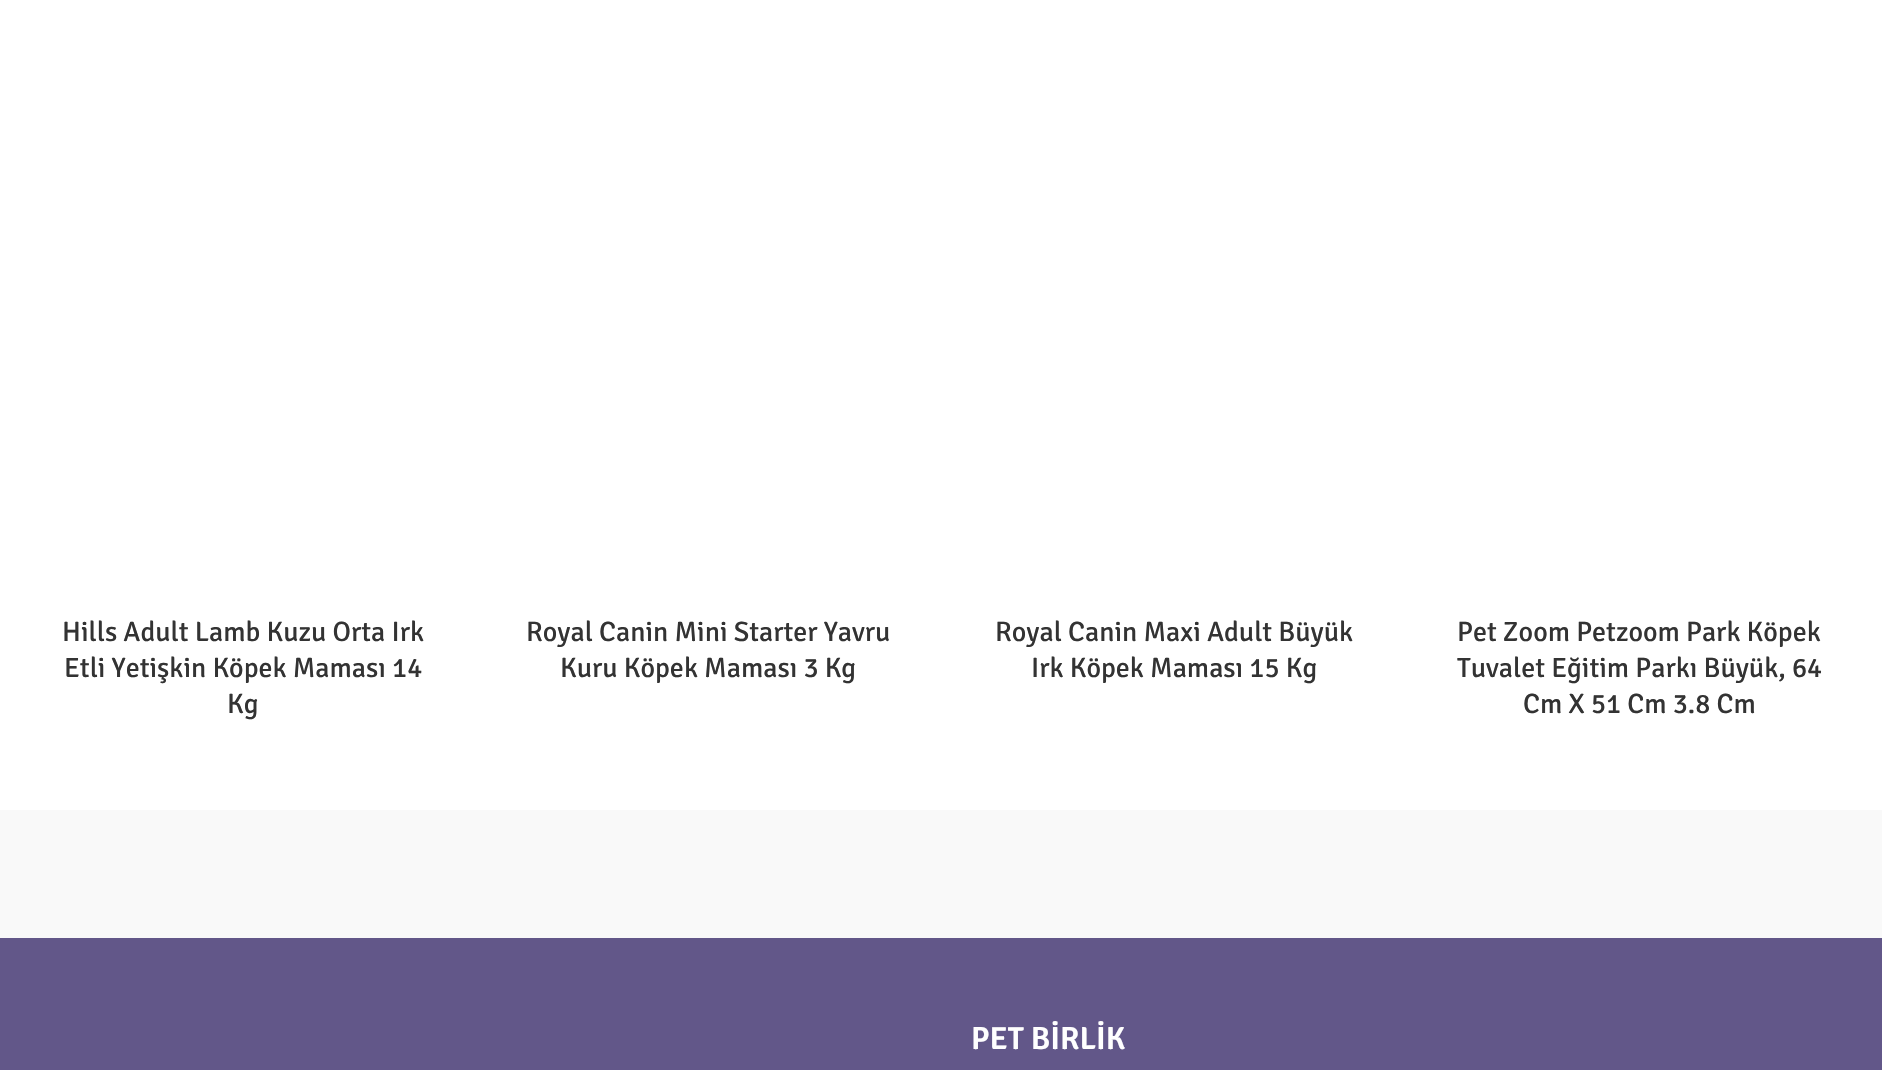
void draw(SkCanvas* canvas) {
  SkPaint paint;
  paint.setAntiAlias(true);
  auto face = [&](const char* family, int weight, float size, bool italic = false) {
    SkFontStyle style(weight, SkFontStyle::kNormal_Width,
      italic ? SkFontStyle::kItalic_Slant : SkFontStyle::kUpright_Slant);
    SkFont result(fontMgr->matchFamilyStyle(family, style), size);
    result.setSubpixel(true);
    return result;
  };
  canvas->clear(0xffffffff);
  paint.setColor(0xfff9f9f9);
  canvas->drawRect(SkRect::MakeXYWH(0, 810, 1882, 128), paint);
  paint.setColor(0xff625789);
  canvas->drawRect(SkRect::MakeXYWH(0, 938, 1882, 132), paint);
  auto f0 = face("Signika", 400, 28);
  paint.setColor(0xff333333);
  {
    const struct { const char* s; float x, y; } items[] = {
      {"Hills Adult Lamb Kuzu Orta Irk", 62, 641},
      {"Etli Yetişkin Köpek Maması 14", 64, 677},
      {"Kg", 227, 713},
      {"Royal Canin Mini Starter Yavru", 526, 641},
      {"Kuru Köpek Maması 3 Kg", 560, 677},
      {"Royal Canin Maxi Adult Büyük", 995, 641},
      {"Irk Köpek Maması 15 Kg", 1031, 677},
      {"Pet Zoom Petzoom Park Köpek", 1457, 641},
      {"Tuvalet Eğitim Parkı Büyük, 64", 1457, 677},
      {"Cm X 51 Cm 3.8 Cm", 1523, 713},
    };
    for (auto [s, x, y] : items) {
      canvas->drawString(s, x, y, f0, paint);
    }
  }
  auto f1 = face("Signika", 600, 32);
  paint.setColor(0xffffffff);
  canvas->drawString("PET BİRLİK", 971, 1049, f1, paint);
}
